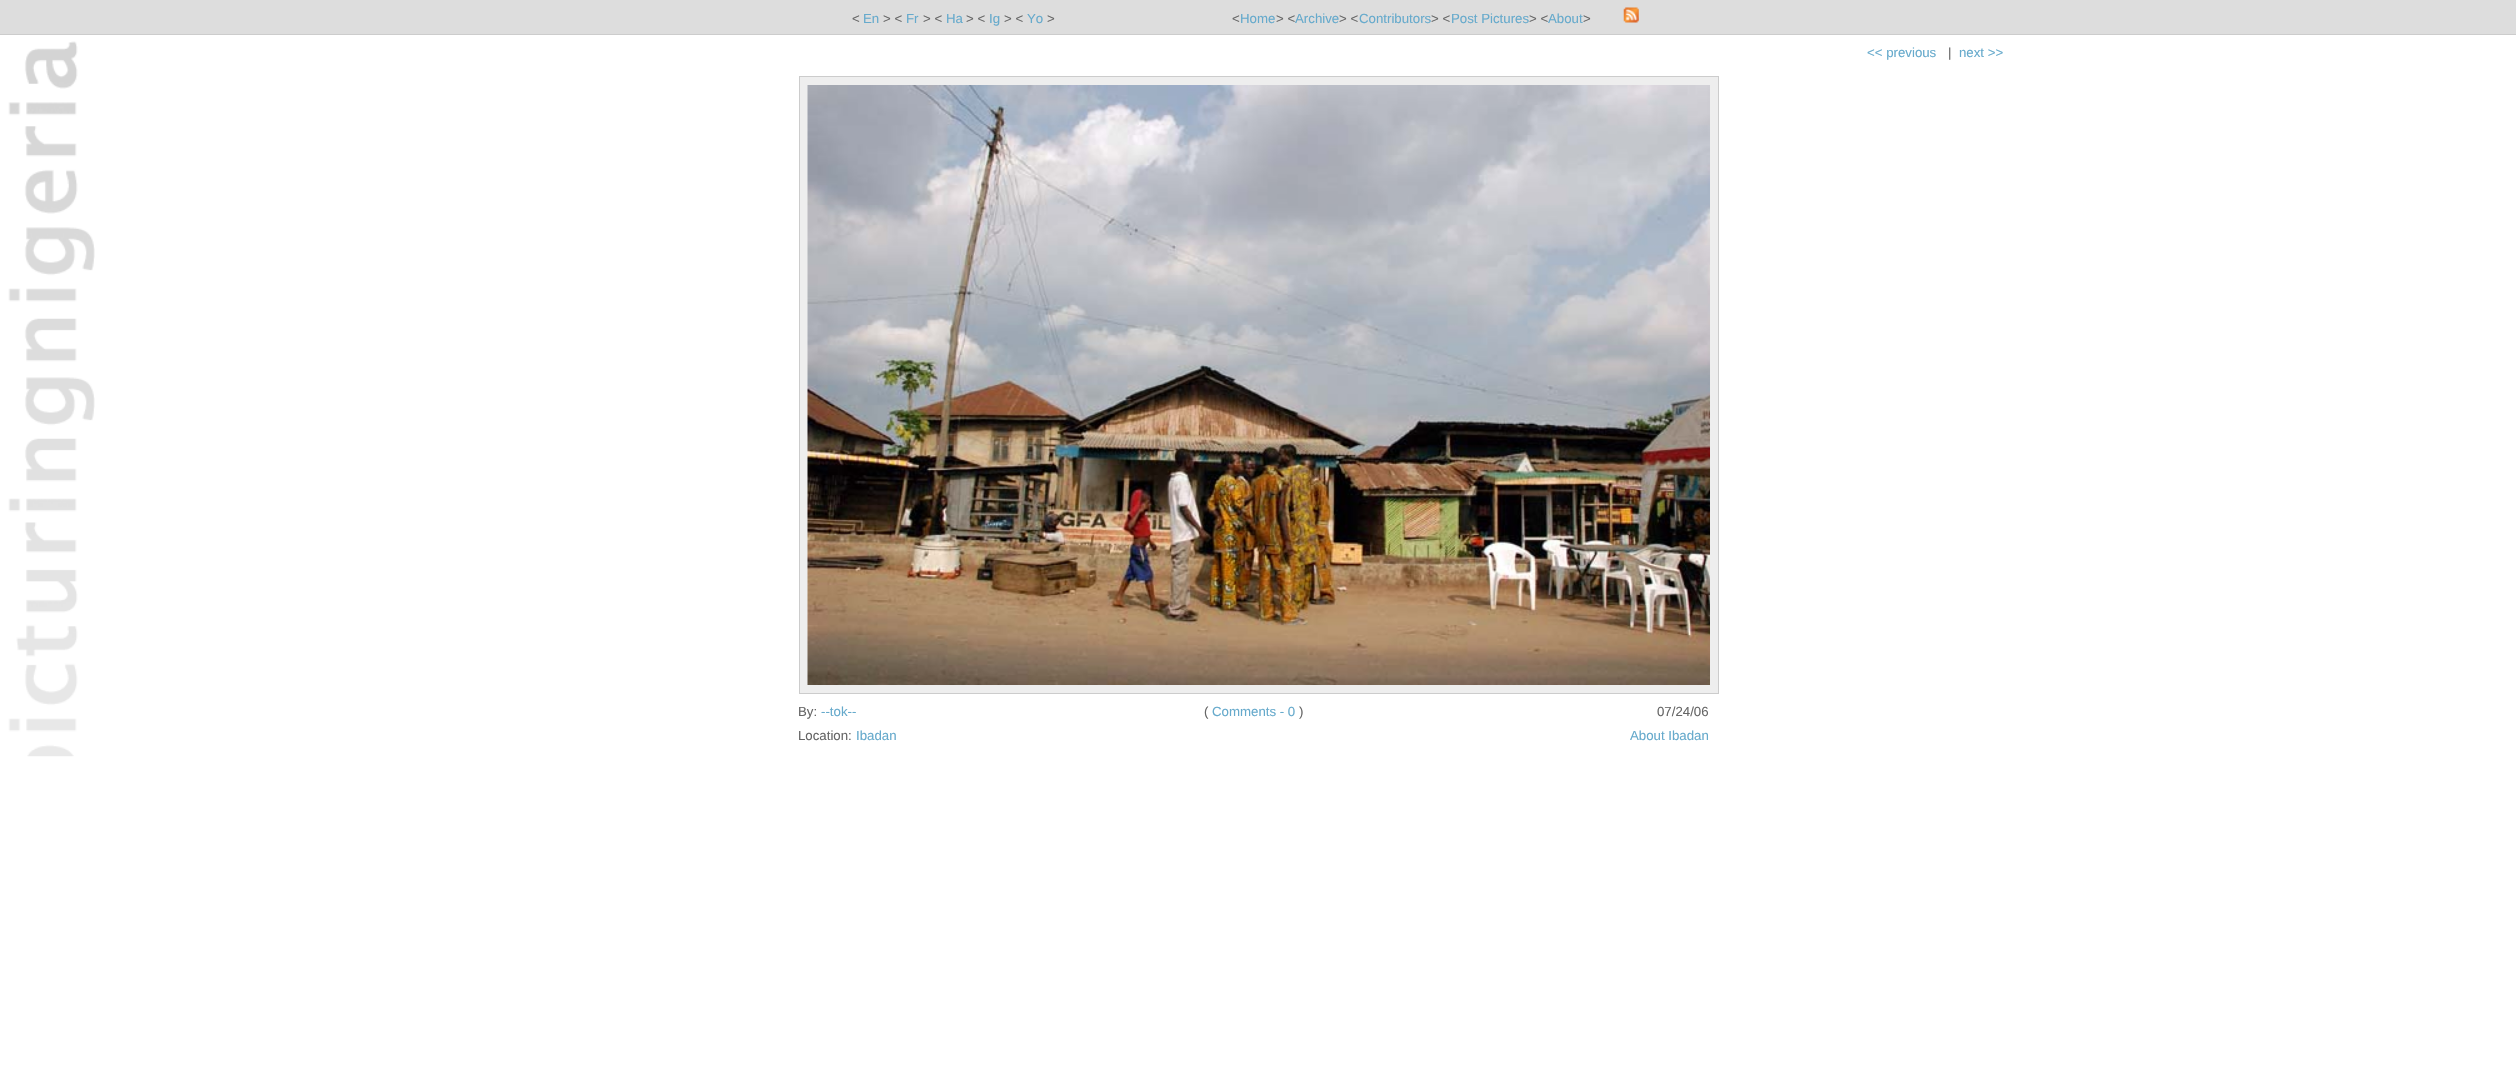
void draw(SkCanvas* canvas) {
  SkPaint paint;
  paint.setAntiAlias(true);
  auto face = [&](const char* family, int weight, float size, bool italic = false) {
    SkFontStyle style(weight, SkFontStyle::kNormal_Width,
      italic ? SkFontStyle::kItalic_Slant : SkFontStyle::kUpright_Slant);
    SkFont result(fontMgr->matchFamilyStyle(family, style), size);
    result.setSubpixel(true);
    return result;
  };
  auto paste = [&](const char* path, float x, float y, float w, float h) {
    auto image = SkImages::DeferredFromEncodedData(SkData::MakeFromFileName(path));
    canvas->drawImageRect(image, SkRect::MakeXYWH(x, y, w, h), SkSamplingOptions());
  };
  canvas->clear(0xffffffff);
  paint.setColor(0xffdddddd);
  canvas->drawRect(SkRect::MakeXYWH(0, 0, 2516, 34), paint);
  paint.setColor(0xffcccccc);
  canvas->drawRect(SkRect::MakeXYWH(0, 34, 2516, 1), paint);
  paste("img/1.png", 1623, 7, 16, 16);
  paste("img/2.png", 8, 41, 87, 716);
  paint.setColor(0xffeeeeee);
  canvas->drawRect(SkRect::MakeXYWH(799.5f, 76.5f, 919, 617), paint);
  paint.setStroke(true);
  paint.setStrokeWidth(1);
  paint.setColor(0xffcccccc);
  canvas->drawRect(SkRect::MakeXYWH(799.5f, 76.5f, 919, 617), paint);
  paste("img/3.png", 807, 85, 903, 600);
  auto f0 = face("Liberation Sans", 400, 13.25f);
  paint.setStroke(false);
  paint.setColor(0xff666666);
  canvas->drawString("<", 852, 23, f0, paint);
  paint.setColor(0xff66aacc);
  canvas->drawString("En", 863, 23, f0, paint);
  paint.setColor(0xff666666);
  canvas->drawString("> <", 883, 23, f0, paint);
  paint.setColor(0xff66aacc);
  canvas->drawString("Fr", 906, 23, f0, paint);
  paint.setColor(0xff666666);
  canvas->drawString("> <", 923, 23, f0, paint);
  paint.setColor(0xff66aacc);
  canvas->drawString("Ha", 946, 23, f0, paint);
  paint.setColor(0xff666666);
  canvas->drawString("> <", 966, 23, f0, paint);
  paint.setColor(0xff66aacc);
  canvas->drawString("Ig", 989, 23, f0, paint);
  paint.setColor(0xff666666);
  canvas->drawString("> <", 1004, 23, f0, paint);
  paint.setColor(0xff66aacc);
  canvas->drawString("Yo", 1027, 23, f0, paint);
  paint.setColor(0xff666666);
  canvas->drawString(">", 1047, 23, f0, paint);
  canvas->drawString("<", 1232, 23, f0, paint);
  paint.setColor(0xff66aacc);
  canvas->drawString("Home", 1240, 23, f0, paint);
  paint.setColor(0xff666666);
  canvas->drawString("> <", 1276, 23, f0, paint);
  paint.setColor(0xff66aacc);
  canvas->drawString("Archive", 1295, 23, f0, paint);
  paint.setColor(0xff666666);
  canvas->drawString("> <", 1339, 23, f0, paint);
  paint.setColor(0xff66aacc);
  canvas->drawString("Contributors", 1359, 23, f0, paint);
  paint.setColor(0xff666666);
  canvas->drawString("> <", 1431, 23, f0, paint);
  paint.setColor(0xff66aacc);
  canvas->drawString("Post Pictures", 1451, 23, f0, paint);
  paint.setColor(0xff666666);
  canvas->drawString("> <", 1529, 23, f0, paint);
  paint.setColor(0xff66aacc);
  canvas->drawString("About", 1548, 23, f0, paint);
  paint.setColor(0xff666666);
  canvas->drawString(">", 1583, 23, f0, paint);
  paint.setColor(0xff66aacc);
  canvas->drawString("<< previous", 1867, 57, f0, paint);
  paint.setColor(0xff666666);
  canvas->drawString("|", 1948, 57, f0, paint);
  paint.setColor(0xff66aacc);
  canvas->drawString("next >>", 1959, 57, f0, paint);
  paint.setColor(0xff666666);
  canvas->drawString("By:", 798, 716, f0, paint);
  paint.setColor(0xff66aacc);
  canvas->drawString("--tok--", 821, 716, f0, paint);
  paint.setColor(0xff666666);
  canvas->drawString("(", 1204, 716, f0, paint);
  paint.setColor(0xff66aacc);
  canvas->drawString("Comments - 0", 1212, 716, f0, paint);
  paint.setColor(0xff666666);
  {
    const struct { const char* s; float x, y; } items[] = {
      {")", 1299, 716},
      {"07/24/06", 1657, 716},
      {"Location:", 798, 740},
    };
    for (auto [s, x, y] : items) {
      canvas->drawString(s, x, y, f0, paint);
    }
  }
  paint.setColor(0xff66aacc);
  canvas->drawString("Ibadan", 856, 740, f0, paint);
  canvas->drawString("About Ibadan", 1630, 740, f0, paint);
}
